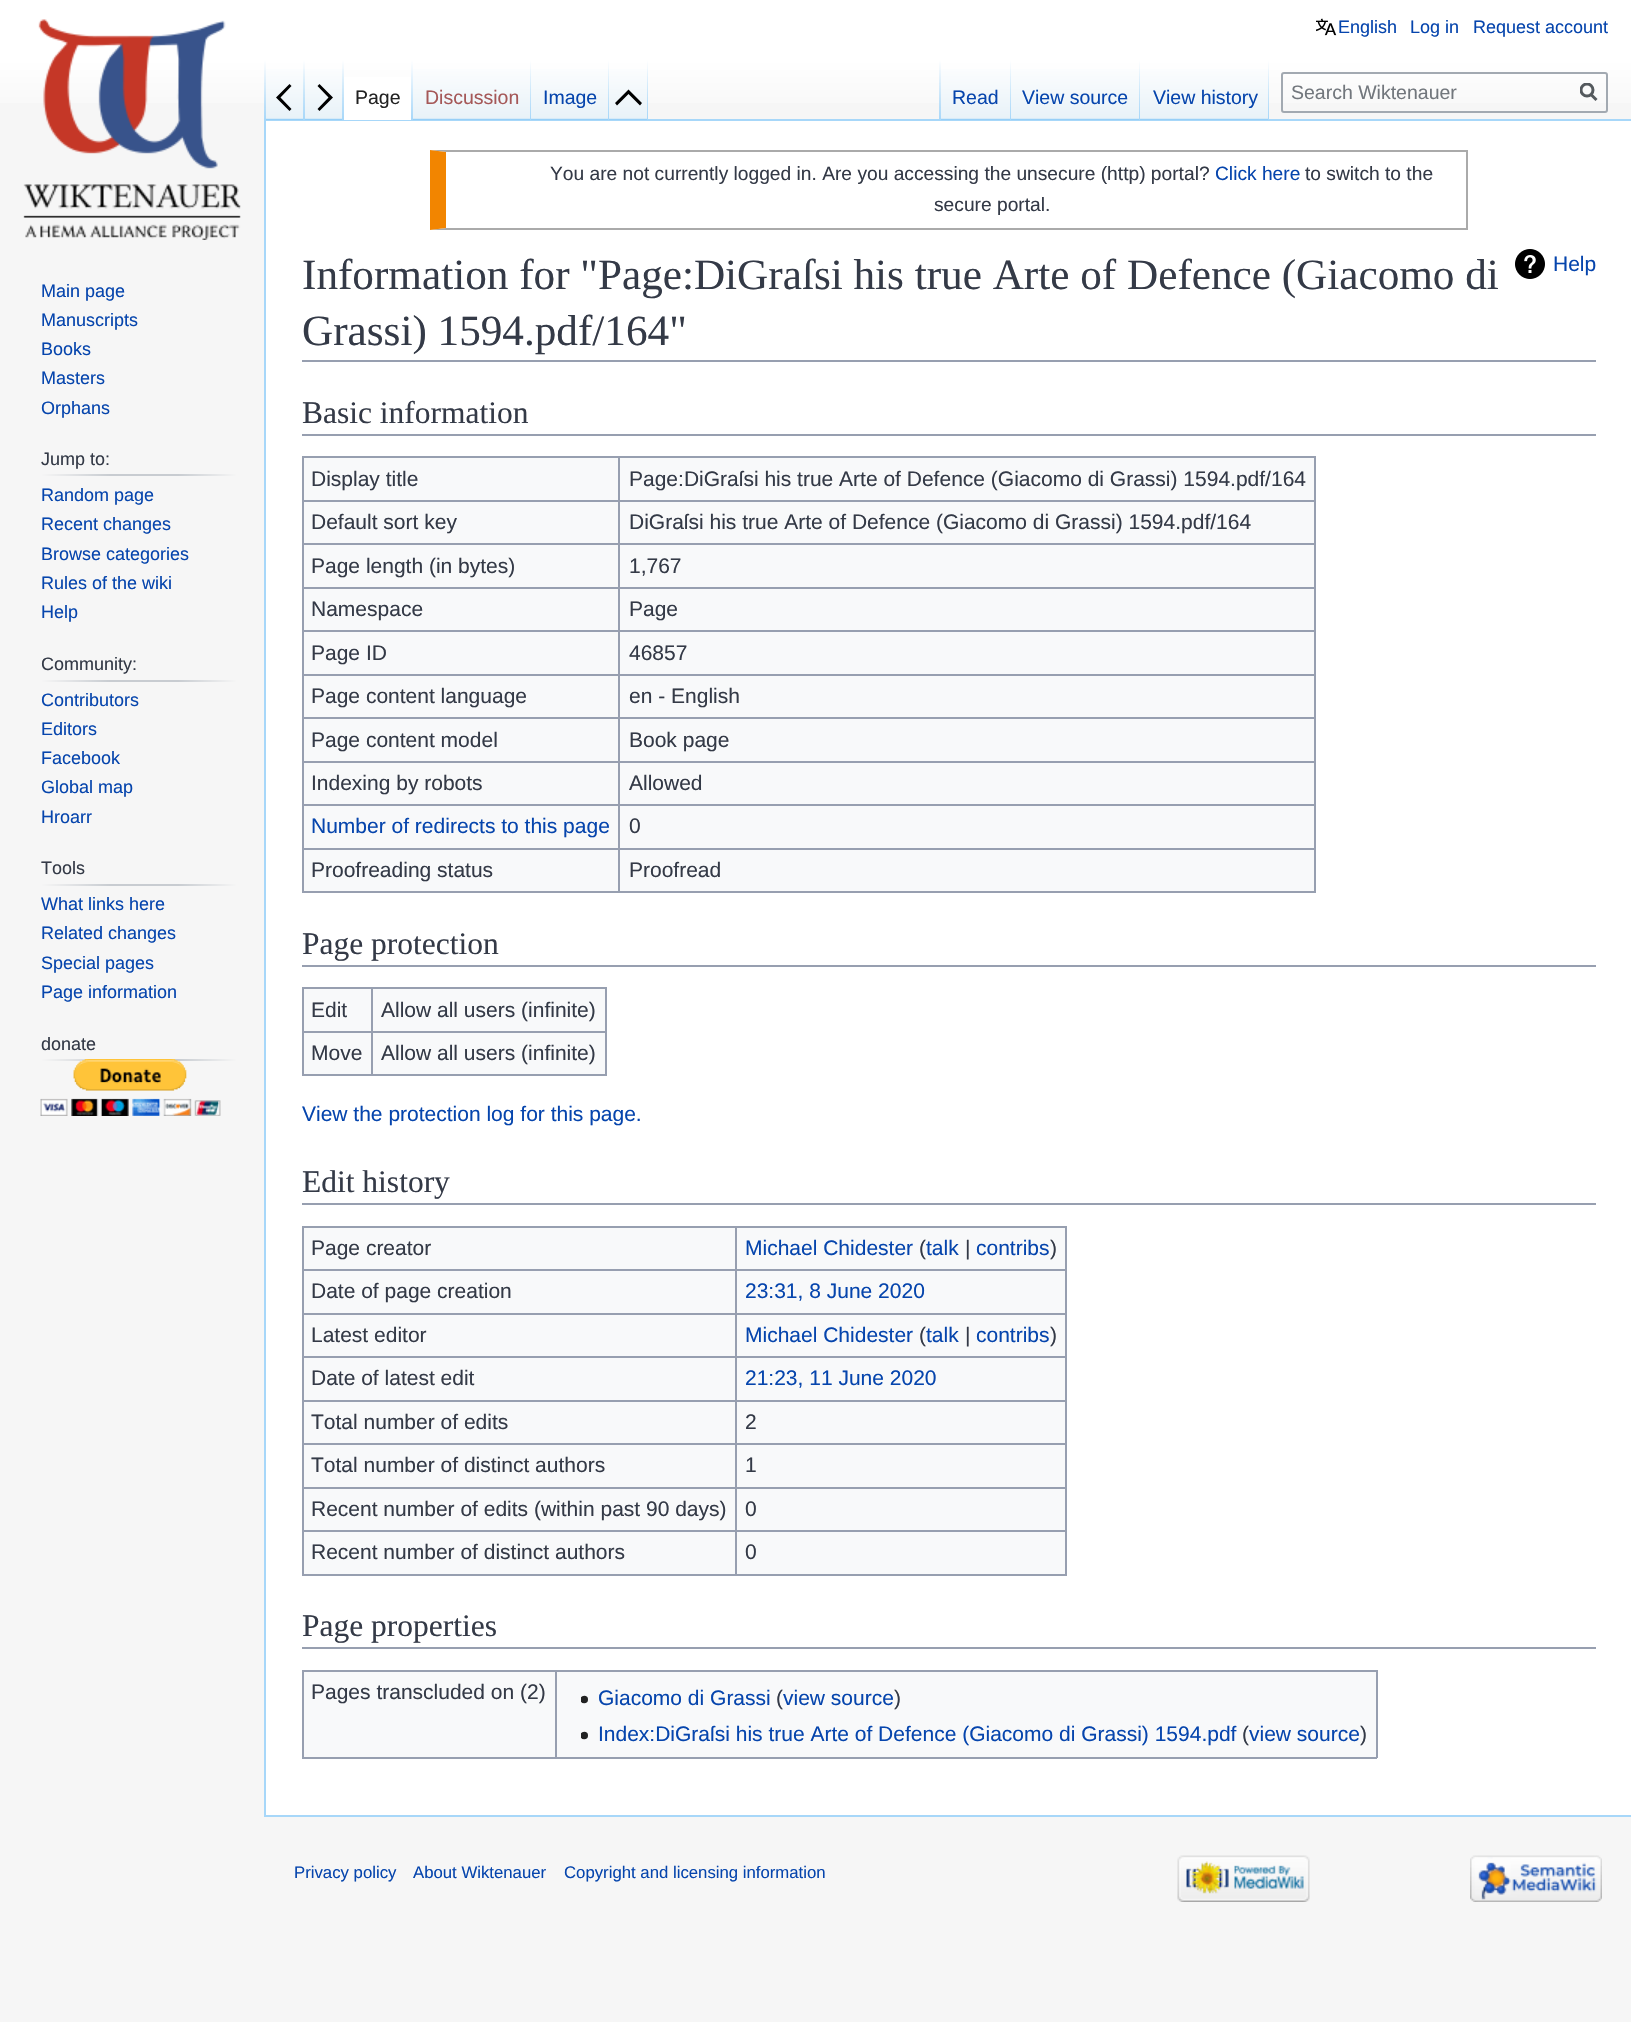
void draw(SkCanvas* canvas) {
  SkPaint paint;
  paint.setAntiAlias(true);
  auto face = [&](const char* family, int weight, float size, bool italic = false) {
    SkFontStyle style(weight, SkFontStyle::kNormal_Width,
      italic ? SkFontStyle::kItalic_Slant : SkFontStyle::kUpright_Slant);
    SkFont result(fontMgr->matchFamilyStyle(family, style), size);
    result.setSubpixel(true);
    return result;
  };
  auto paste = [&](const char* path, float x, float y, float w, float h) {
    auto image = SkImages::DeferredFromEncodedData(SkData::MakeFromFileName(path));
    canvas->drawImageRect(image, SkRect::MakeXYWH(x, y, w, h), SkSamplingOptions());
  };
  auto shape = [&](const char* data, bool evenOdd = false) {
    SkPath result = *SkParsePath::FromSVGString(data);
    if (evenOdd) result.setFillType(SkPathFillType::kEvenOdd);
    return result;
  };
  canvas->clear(0xfff6f6f6);
  {
    const SkColor colors[] = {0xffffffff, 0xfff6f6f6};
    const float stops[] = {0.5f, 1};
    const SkPoint ends[] = {{816, 0}, {816, 120}};
    paint.setShader(SkGradientShader::MakeLinear(ends, colors, stops, 2, SkTileMode::kClamp));
    paint.setAlpha(255);
  }
  canvas->drawRect(SkRect::MakeXYWH(0, 0, 1631, 103), paint);
  paste("img/1.png", 1316, 18, 21, 18);
  paint.setShader(nullptr);
  {
    const struct { float x, y, w, h; SkColor color; } items[] = {
      {264, 119, 1367, 2, 0xffa7d7f9},
      {264, 1815, 1367, 2, 0xffa7d7f9},
      {264, 119, 2, 1698, 0xffa7d7f9},
    };
    for (auto [x, y, w, h, color] : items) {
      paint.setColor(color);
      canvas->drawRect(SkRect::MakeXYWH(x, y, w, h), paint);
    }
  }
  {
    const SkColor colors[] = {0x00a7d7f9, 0xffa7d7f9};
    const float stops[] = {0, 1};
    const SkPoint ends[] = {{265, 60}, {265, 120}};
    paint.setShader(SkGradientShader::MakeLinear(ends, colors, stops, 2, SkTileMode::kClamp));
    paint.setAlpha(255);
  }
  canvas->drawRect(SkRect::MakeXYWH(264, 60, 2, 60), paint);
  {
    const SkColor colors[] = {0xff77c1f6, 0xffe8f2f8, 0xffffffff};
    const float stops[] = {0, 0.03f, 1};
    const SkPoint ends[] = {{285, 120}, {285, 60}};
    paint.setShader(SkGradientShader::MakeLinear(ends, colors, stops, 3, SkTileMode::kClamp));
    paint.setAlpha(255);
  }
  canvas->drawRect(SkRect::MakeXYWH(266, 69, 39, 51), paint);
  {
    const SkColor colors[] = {0x00a7d7f9, 0xffa7d7f9};
    const float stops[] = {0, 1};
    const SkPoint ends[] = {{304, 60}, {304, 120}};
    paint.setShader(SkGradientShader::MakeLinear(ends, colors, stops, 2, SkTileMode::kClamp));
    paint.setAlpha(255);
  }
  canvas->drawRect(SkRect::MakeXYWH(303, 60, 2, 60), paint);
  {
    const SkColor colors[] = {0xff77c1f6, 0xffe8f2f8, 0xffffffff};
    const float stops[] = {0, 0.03f, 1};
    const SkPoint ends[] = {{324, 120}, {324, 60}};
    paint.setShader(SkGradientShader::MakeLinear(ends, colors, stops, 3, SkTileMode::kClamp));
    paint.setAlpha(255);
  }
  canvas->drawRect(SkRect::MakeXYWH(305, 69, 39, 51), paint);
  paint.setShader(nullptr);
  paint.setColor(0xff000000);
  canvas->drawPath(shape("M276 97.5L289.5 111L291.5 109L280.5 97.5L291.5 86L289.5 84ZM319.5 84L317.5 86L328.5 97.5L317.5 109L319.5 111L333 97.5Z"), paint);
  {
    const SkColor colors[] = {0x00a7d7f9, 0xffa7d7f9};
    const float stops[] = {0, 1};
    const SkPoint ends[] = {{343, 60}, {343, 120}};
    paint.setShader(SkGradientShader::MakeLinear(ends, colors, stops, 2, SkTileMode::kClamp));
    paint.setAlpha(255);
  }
  canvas->drawRect(SkRect::MakeXYWH(342, 60, 2, 60), paint);
  paint.setShader(nullptr);
  paint.setColor(0xffffffff);
  canvas->drawRect(SkRect::MakeXYWH(344, 77, 67, 43), paint);
  {
    const SkColor colors[] = {0xffffffff, 0xffa7d7f9};
    const float stops[] = {0, 1};
    const SkPoint ends[] = {{412, 60}, {412, 120}};
    paint.setShader(SkGradientShader::MakeLinear(ends, colors, stops, 2, SkTileMode::kClamp));
    paint.setAlpha(255);
  }
  canvas->drawRect(SkRect::MakeXYWH(411, 60, 2, 60), paint);
  {
    const SkColor colors[] = {0xff77c1f6, 0xffe8f2f8, 0xffffffff};
    const float stops[] = {0, 0.03f, 1};
    const SkPoint ends[] = {{472, 120}, {472, 60}};
    paint.setShader(SkGradientShader::MakeLinear(ends, colors, stops, 3, SkTileMode::kClamp));
    paint.setAlpha(255);
  }
  canvas->drawRect(SkRect::MakeXYWH(413, 69, 118, 51), paint);
  {
    const SkColor colors[] = {0x00a7d7f9, 0xffa7d7f9};
    const float stops[] = {0, 1};
    const SkPoint ends[] = {{530, 60}, {530, 120}};
    paint.setShader(SkGradientShader::MakeLinear(ends, colors, stops, 2, SkTileMode::kClamp));
    paint.setAlpha(255);
  }
  canvas->drawRect(SkRect::MakeXYWH(530, 60, 1, 60), paint);
  {
    const SkColor colors[] = {0xff77c1f6, 0xffe8f2f8, 0xffffffff};
    const float stops[] = {0, 0.03f, 1};
    const SkPoint ends[] = {{570, 120}, {570, 60}};
    paint.setShader(SkGradientShader::MakeLinear(ends, colors, stops, 3, SkTileMode::kClamp));
    paint.setAlpha(255);
  }
  canvas->drawRect(SkRect::MakeXYWH(531, 69, 78, 51), paint);
  {
    const SkColor colors[] = {0x00a7d7f9, 0xffa7d7f9};
    const float stops[] = {0, 1};
    const SkPoint ends[] = {{608, 60}, {608, 120}};
    paint.setShader(SkGradientShader::MakeLinear(ends, colors, stops, 2, SkTileMode::kClamp));
    paint.setAlpha(255);
  }
  canvas->drawRect(SkRect::MakeXYWH(608, 60, 1, 60), paint);
  {
    const SkColor colors[] = {0xff77c1f6, 0xffe8f2f8, 0xffffffff};
    const float stops[] = {0, 0.03f, 1};
    const SkPoint ends[] = {{629, 120}, {629, 60}};
    paint.setShader(SkGradientShader::MakeLinear(ends, colors, stops, 3, SkTileMode::kClamp));
    paint.setAlpha(255);
  }
  canvas->drawRect(SkRect::MakeXYWH(609, 69, 39, 51), paint);
  {
    const SkColor colors[] = {0x00a7d7f9, 0xffa7d7f9};
    const float stops[] = {0, 1};
    const SkPoint ends[] = {{647, 60}, {647, 120}};
    paint.setShader(SkGradientShader::MakeLinear(ends, colors, stops, 2, SkTileMode::kClamp));
    paint.setAlpha(255);
  }
  canvas->drawRect(SkRect::MakeXYWH(647, 60, 1, 60), paint);
  paint.setShader(nullptr);
  paint.setColor(0xff000000);
  canvas->drawPath(shape("M617 105.5L628.5 94L640 105.5L642 103L628.5 89.5L615 103Z"), paint);
  {
    const SkColor colors[] = {0x00a7d7f9, 0xffa7d7f9};
    const float stops[] = {0, 1};
    const SkPoint ends[] = {{940, 60}, {940, 120}};
    paint.setShader(SkGradientShader::MakeLinear(ends, colors, stops, 2, SkTileMode::kClamp));
    paint.setAlpha(255);
  }
  canvas->drawRect(SkRect::MakeXYWH(939, 60, 2, 60), paint);
  {
    const SkColor colors[] = {0xff77c1f6, 0xffe8f2f8, 0xffffffff};
    const float stops[] = {0, 0.03f, 1};
    const SkPoint ends[] = {{976, 120}, {976, 60}};
    paint.setShader(SkGradientShader::MakeLinear(ends, colors, stops, 3, SkTileMode::kClamp));
    paint.setAlpha(255);
  }
  canvas->drawRect(SkRect::MakeXYWH(941, 69, 70, 51), paint);
  {
    const SkColor colors[] = {0x00a7d7f9, 0xffa7d7f9};
    const float stops[] = {0, 1};
    const SkPoint ends[] = {{1010, 60}, {1010, 120}};
    paint.setShader(SkGradientShader::MakeLinear(ends, colors, stops, 2, SkTileMode::kClamp));
    paint.setAlpha(255);
  }
  canvas->drawRect(SkRect::MakeXYWH(1010, 60, 1, 60), paint);
  {
    const SkColor colors[] = {0xff77c1f6, 0xffe8f2f8, 0xffffffff};
    const float stops[] = {0, 0.03f, 1};
    const SkPoint ends[] = {{1076, 120}, {1076, 60}};
    paint.setShader(SkGradientShader::MakeLinear(ends, colors, stops, 3, SkTileMode::kClamp));
    paint.setAlpha(255);
  }
  canvas->drawRect(SkRect::MakeXYWH(1011, 69, 129, 51), paint);
  {
    const SkColor colors[] = {0x00a7d7f9, 0xffa7d7f9};
    const float stops[] = {0, 1};
    const SkPoint ends[] = {{1139, 60}, {1139, 120}};
    paint.setShader(SkGradientShader::MakeLinear(ends, colors, stops, 2, SkTileMode::kClamp));
    paint.setAlpha(255);
  }
  canvas->drawRect(SkRect::MakeXYWH(1139, 60, 1, 60), paint);
  {
    const SkColor colors[] = {0xff77c1f6, 0xffe8f2f8, 0xffffffff};
    const float stops[] = {0, 0.03f, 1};
    const SkPoint ends[] = {{1205, 120}, {1205, 60}};
    paint.setShader(SkGradientShader::MakeLinear(ends, colors, stops, 3, SkTileMode::kClamp));
    paint.setAlpha(255);
  }
  canvas->drawRect(SkRect::MakeXYWH(1140, 69, 129, 51), paint);
  {
    const SkColor colors[] = {0x00a7d7f9, 0xffa7d7f9};
    const float stops[] = {0, 1};
    const SkPoint ends[] = {{1268, 60}, {1268, 120}};
    paint.setShader(SkGradientShader::MakeLinear(ends, colors, stops, 2, SkTileMode::kClamp));
    paint.setAlpha(255);
  }
  canvas->drawRect(SkRect::MakeXYWH(1268, 60, 1, 60), paint);
  paint.setStroke(true);
  paint.setStrokeWidth(2);
  paint.setShader(nullptr);
  paint.setColor(0xffa2a9b1);
  canvas->drawRoundRect(SkRect::MakeXYWH(1282, 73, 325, 39), 2, 2, paint);
  paint.setStrokeWidth(3);
  paint.setColor(0xff54595d);
  canvas->drawPath(shape("M1596.5 100L1590.5 94"), paint);
  canvas->save();
  canvas->clipRect(SkRect::MakeXYWH(1580, 83, 18, 19));
  canvas->drawCircle(1587, 90, 6, paint);
  canvas->restore();
  paste("img/2.png", 23, 19, 218, 221);
  paint.setStroke(false);
  {
    const SkColor colors[] = {0xfff6f6f6, 0xffc8ccd1, 0xffc8ccd1, 0xfff6f6f6};
    const float stops[] = {0, 0.35f, 0.7f, 1};
    const SkPoint ends[] = {{41, 475}, {237, 475}};
    paint.setShader(SkGradientShader::MakeLinear(ends, colors, stops, 4, SkTileMode::kClamp));
    paint.setAlpha(255);
  }
  canvas->drawRect(SkRect::MakeXYWH(41, 474, 196, 2), paint);
  {
    const SkColor colors[] = {0xfff6f6f6, 0xffc8ccd1, 0xffc8ccd1, 0xfff6f6f6};
    const float stops[] = {0, 0.35f, 0.7f, 1};
    const SkPoint ends[] = {{41, 680}, {237, 680}};
    paint.setShader(SkGradientShader::MakeLinear(ends, colors, stops, 4, SkTileMode::kClamp));
    paint.setAlpha(255);
  }
  canvas->drawRect(SkRect::MakeXYWH(41, 680, 196, 2), paint);
  {
    const SkColor colors[] = {0xfff6f6f6, 0xffc8ccd1, 0xffc8ccd1, 0xfff6f6f6};
    const float stops[] = {0, 0.35f, 0.7f, 1};
    const SkPoint ends[] = {{41, 884}, {237, 884}};
    paint.setShader(SkGradientShader::MakeLinear(ends, colors, stops, 4, SkTileMode::kClamp));
    paint.setAlpha(255);
  }
  canvas->drawRect(SkRect::MakeXYWH(41, 884, 196, 2), paint);
  {
    const SkColor colors[] = {0xfff6f6f6, 0xffc8ccd1, 0xffc8ccd1, 0xfff6f6f6};
    const float stops[] = {0, 0.35f, 0.7f, 1};
    const SkPoint ends[] = {{41, 1060}, {237, 1060}};
    paint.setShader(SkGradientShader::MakeLinear(ends, colors, stops, 4, SkTileMode::kClamp));
    paint.setAlpha(255);
  }
  canvas->drawRect(SkRect::MakeXYWH(41, 1059, 196, 2), paint);
  paste("img/3.png", 40, 1059, 181, 57);
  paint.setShader(nullptr);
  paint.setColor(0xffffffff);
  canvas->drawRect(SkRect::MakeXYWH(266, 121, 1365, 1694), paint);
  paint.setColor(0xffaaaaaa);
  canvas->drawPath(shape("M430 150H1467L1466 152H446Z"), paint);
  canvas->drawRect(SkRect::MakeXYWH(1466, 150, 2, 80), paint);
  canvas->drawPath(shape("M1467 230H430L446 228H1466Z"), paint);
  paint.setColor(0xfff28500);
  canvas->drawPath(shape("M430 230V150L446 152V228Z"), paint);
  paint.setColor(0xff979fb0);
  canvas->drawRect(SkRect::MakeXYWH(302, 360, 1294, 2), paint);
  paste("img/4.png", 1515, 249, 30, 30);
  {
    const struct { float x, y, w, h; SkColor color; } items[] = {
      {302, 434, 1294, 2, 0xff979fb0},
      {304, 458, 1010, 433, 0xfff8f9fa},
      {302, 456, 1014, 2, 0xff979fb0},
      {1314, 456, 2, 437, 0xff979fb0},
      {302, 891, 1014, 2, 0xff979fb0},
      {302, 456, 2, 437, 0xff979fb0},
      {618, 500, 698, 2, 0xff979fb0},
      {618, 543, 698, 2, 0xff979fb0},
      {618, 587, 698, 2, 0xff979fb0},
      {618, 630, 698, 2, 0xff979fb0},
      {618, 674, 698, 2, 0xff979fb0},
      {618, 717, 698, 2, 0xff979fb0},
      {618, 761, 698, 2, 0xff979fb0},
      {618, 804, 698, 2, 0xff979fb0},
      {618, 848, 698, 2, 0xff979fb0},
      {618, 848, 2, 45, 0xff979fb0},
      {302, 848, 318, 2, 0xff979fb0},
      {618, 804, 2, 45, 0xff979fb0},
      {302, 804, 318, 2, 0xff979fb0},
      {618, 761, 2, 45, 0xff979fb0},
      {302, 761, 318, 2, 0xff979fb0},
      {618, 717, 2, 45, 0xff979fb0},
      {302, 717, 318, 2, 0xff979fb0},
      {618, 674, 2, 45, 0xff979fb0},
      {302, 674, 318, 2, 0xff979fb0},
      {618, 630, 2, 45, 0xff979fb0},
      {302, 630, 318, 2, 0xff979fb0},
      {618, 587, 2, 45, 0xff979fb0},
      {302, 587, 318, 2, 0xff979fb0},
      {618, 543, 2, 45, 0xff979fb0},
      {302, 543, 318, 2, 0xff979fb0},
      {618, 500, 2, 45, 0xff979fb0},
      {302, 500, 318, 2, 0xff979fb0},
      {618, 456, 2, 45, 0xff979fb0},
      {302, 965, 1294, 2, 0xff979fb0},
      {304, 989, 301, 85, 0xfff8f9fa},
      {302, 987, 304, 2, 0xff979fb0},
      {605, 987, 2, 89, 0xff979fb0},
      {302, 1074, 304, 2, 0xff979fb0},
      {302, 987, 2, 89, 0xff979fb0},
      {371, 1031, 235, 2, 0xff979fb0},
      {371, 1031, 2, 45, 0xff979fb0},
      {302, 1031, 70, 2, 0xff979fb0},
      {371, 987, 2, 45, 0xff979fb0},
      {302, 1203, 1294, 2, 0xff979fb0},
      {304, 1228, 761, 346, 0xfff8f9fa},
      {302, 1226, 765, 2, 0xff979fb0},
      {1065, 1226, 2, 349, 0xff979fb0},
      {302, 1574, 765, 2, 0xff979fb0},
      {302, 1226, 2, 349, 0xff979fb0},
      {735, 1269, 332, 2, 0xff979fb0},
      {735, 1313, 332, 2, 0xff979fb0},
      {735, 1356, 332, 2, 0xff979fb0},
      {735, 1400, 332, 2, 0xff979fb0},
      {735, 1443, 332, 2, 0xff979fb0},
      {735, 1487, 332, 2, 0xff979fb0},
      {735, 1530, 332, 2, 0xff979fb0},
      {735, 1530, 2, 45, 0xff979fb0},
      {302, 1530, 435, 2, 0xff979fb0},
      {735, 1487, 2, 45, 0xff979fb0},
      {302, 1487, 435, 2, 0xff979fb0},
      {735, 1443, 2, 45, 0xff979fb0},
      {302, 1443, 435, 2, 0xff979fb0},
      {735, 1400, 2, 45, 0xff979fb0},
      {302, 1400, 435, 2, 0xff979fb0},
      {735, 1356, 2, 45, 0xff979fb0},
      {302, 1356, 435, 2, 0xff979fb0},
      {735, 1313, 2, 45, 0xff979fb0},
      {302, 1313, 435, 2, 0xff979fb0},
      {735, 1269, 2, 45, 0xff979fb0},
      {302, 1269, 435, 2, 0xff979fb0},
      {735, 1226, 2, 45, 0xff979fb0},
      {302, 1647, 1294, 2, 0xff979fb0},
      {304, 1672, 1072, 85, 0xfff8f9fa},
      {302, 1670, 1075, 2, 0xff979fb0},
      {1376, 1670, 2, 88, 0xff979fb0},
      {302, 1757, 1075, 2, 0xff979fb0},
      {302, 1670, 2, 88, 0xff979fb0},
      {555, 1670, 2, 88, 0xff979fb0},
    };
    for (auto [x, y, w, h, color] : items) {
      paint.setColor(color);
      canvas->drawRect(SkRect::MakeXYWH(x, y, w, h), paint);
    }
  }
  paste("img/5.png", 581, 1695, 7, 9);
  paste("img/5.png", 581, 1731, 7, 9);
  paste("img/6.png", 1177, 1855, 133, 47);
  paste("img/7.png", 1470, 1855, 132, 47);
  auto f0 = face("Liberation Sans", 400, 18);
  paint.setColor(0xff0645ad);
  {
    const struct { const char* s; float x, y; } items[] = {
      {"English", 1338, 33},
      {"Log in", 1410, 33},
      {"Request account", 1473, 33},
    };
    for (auto [s, x, y] : items) {
      canvas->drawString(s, x, y, f0, paint);
    }
  }
  auto f1 = face("Liberation Sans", 400, 19.5f);
  paint.setColor(0xff222222);
  canvas->drawString("Page", 355, 104, f1, paint);
  paint.setColor(0xffa55858);
  canvas->drawString("Discussion", 425, 104, f1, paint);
  paint.setColor(0xff0645ad);
  {
    const struct { const char* s; float x, y; } items[] = {
      {"Image", 543, 104},
      {"Read", 952, 104},
      {"View source", 1022, 104},
      {"View history", 1153, 104},
    };
    for (auto [s, x, y] : items) {
      canvas->drawString(s, x, y, f1, paint);
    }
  }
  paint.setColor(0xff72777d);
  canvas->drawString("Search Wiktenauer", 1291, 99, f1, paint);
  paint.setColor(0xff0645ad);
  {
    const struct { const char* s; float x, y; } items[] = {
      {"Main page", 41, 297},
      {"Manuscripts", 41, 326},
      {"Books", 41, 355},
      {"Masters", 41, 384},
      {"Orphans", 41, 414},
    };
    for (auto [s, x, y] : items) {
      canvas->drawString(s, x, y, f0, paint);
    }
  }
  paint.setColor(0xff343a47);
  canvas->drawString("Jump to:", 41, 465, f0, paint);
  paint.setColor(0xff0645ad);
  {
    const struct { const char* s; float x, y; } items[] = {
      {"Random page", 41, 501},
      {"Recent changes", 41, 530},
      {"Browse categories", 41, 560},
      {"Rules of the wiki", 41, 589},
      {"Help", 41, 618},
    };
    for (auto [s, x, y] : items) {
      canvas->drawString(s, x, y, f0, paint);
    }
  }
  paint.setColor(0xff343a47);
  canvas->drawString("Community:", 41, 670, f0, paint);
  paint.setColor(0xff0645ad);
  {
    const struct { const char* s; float x, y; } items[] = {
      {"Contributors", 41, 706},
      {"Editors", 41, 735},
      {"Facebook", 41, 764},
      {"Global map", 41, 793},
      {"Hroarr", 41, 823},
    };
    for (auto [s, x, y] : items) {
      canvas->drawString(s, x, y, f0, paint);
    }
  }
  paint.setColor(0xff343a47);
  canvas->drawString("Tools", 41, 874, f0, paint);
  paint.setColor(0xff0645ad);
  {
    const struct { const char* s; float x, y; } items[] = {
      {"What links here", 41, 910},
      {"Related changes", 41, 939},
      {"Special pages", 41, 969},
      {"Page information", 41, 998},
    };
    for (auto [s, x, y] : items) {
      canvas->drawString(s, x, y, f0, paint);
    }
  }
  paint.setColor(0xff343a47);
  canvas->drawString("donate", 41, 1050, f0, paint);
  auto f2 = face("Liberation Sans", 400, 19.2f);
  canvas->drawString("You are not currently logged in. Are you accessing the unsecure (http) portal?", 550, 180, f2, paint);
  paint.setColor(0xff0645ad);
  canvas->drawString("Click here", 1215, 180, f2, paint);
  paint.setColor(0xff343a47);
  canvas->drawString("to switch to the", 1305, 180, f2, paint);
  canvas->drawString("secure portal.", 934, 211, f2, paint);
  auto f3 = face("Liberation Serif", 400, 43.2f);
  canvas->drawString("Information for \"Page:DiGraſsi his true Arte of Defence (Giacomo di", 302, 289, f3, paint);
  canvas->drawString("Grassi) 1594.pdf/164\"", 302, 345, f3, paint);
  auto f4 = face("Liberation Sans", 400, 21);
  paint.setColor(0xff0645ad);
  canvas->drawString("Help", 1553, 271, f4, paint);
  auto f5 = face("Liberation Serif", 400, 31.5f);
  paint.setColor(0xff343a47);
  canvas->drawString("Basic information", 302, 423, f5, paint);
  {
    const struct { const char* s; float x, y; } items[] = {
      {"Display title", 311, 486},
      {"Page:DiGraſsi his true Arte of Defence (Giacomo di Grassi) 1594.pdf/164", 629, 486},
      {"Default sort key", 311, 529},
      {"DiGraſsi his true Arte of Defence (Giacomo di Grassi) 1594.pdf/164", 629, 529},
      {"Page length (in bytes)", 311, 573},
      {"1,767", 629, 573},
      {"Namespace", 311, 616},
      {"Page", 629, 616},
      {"Page ID", 311, 660},
      {"46857", 629, 660},
      {"Page content language", 311, 703},
      {"en - English", 629, 703},
      {"Page content model", 311, 747},
      {"Book page", 629, 747},
      {"Indexing by robots", 311, 790},
      {"Allowed", 629, 790},
    };
    for (auto [s, x, y] : items) {
      canvas->drawString(s, x, y, f4, paint);
    }
  }
  paint.setColor(0xff0645ad);
  canvas->drawString("Number of redirects to this page", 311, 833, f4, paint);
  paint.setColor(0xff343a47);
  {
    const struct { const char* s; float x, y; } items[] = {
      {"0", 629, 833},
      {"Proofreading status", 311, 877},
      {"Proofread", 629, 877},
    };
    for (auto [s, x, y] : items) {
      canvas->drawString(s, x, y, f4, paint);
    }
  }
  canvas->drawString("Page protection", 302, 954, f5, paint);
  {
    const struct { const char* s; float x, y; } items[] = {
      {"Edit", 311, 1017},
      {"Allow all users (infinite)", 381, 1017},
      {"Move", 311, 1060},
      {"Allow all users (infinite)", 381, 1060},
    };
    for (auto [s, x, y] : items) {
      canvas->drawString(s, x, y, f4, paint);
    }
  }
  paint.setColor(0xff0645ad);
  canvas->drawString("View the protection log for this page.", 302, 1121, f4, paint);
  paint.setColor(0xff343a47);
  canvas->drawString("Edit history", 302, 1192, f5, paint);
  canvas->drawString("Page creator", 311, 1255, f4, paint);
  paint.setColor(0xff0645ad);
  canvas->drawString("Michael Chidester", 745, 1255, f4, paint);
  paint.setColor(0xff343a47);
  canvas->drawString("(", 919, 1255, f4, paint);
  paint.setColor(0xff0645ad);
  canvas->drawString("talk", 926, 1255, f4, paint);
  paint.setColor(0xff343a47);
  canvas->drawString("|", 965, 1255, f4, paint);
  paint.setColor(0xff0645ad);
  canvas->drawString("contribs", 976, 1255, f4, paint);
  paint.setColor(0xff343a47);
  canvas->drawString(")", 1050, 1255, f4, paint);
  canvas->drawString("Date of page creation", 311, 1298, f4, paint);
  paint.setColor(0xff0645ad);
  canvas->drawString("23:31, 8 June 2020", 745, 1298, f4, paint);
  paint.setColor(0xff343a47);
  canvas->drawString("Latest editor", 311, 1342, f4, paint);
  paint.setColor(0xff0645ad);
  canvas->drawString("Michael Chidester", 745, 1342, f4, paint);
  paint.setColor(0xff343a47);
  canvas->drawString("(", 919, 1342, f4, paint);
  paint.setColor(0xff0645ad);
  canvas->drawString("talk", 926, 1342, f4, paint);
  paint.setColor(0xff343a47);
  canvas->drawString("|", 965, 1342, f4, paint);
  paint.setColor(0xff0645ad);
  canvas->drawString("contribs", 976, 1342, f4, paint);
  paint.setColor(0xff343a47);
  canvas->drawString(")", 1050, 1342, f4, paint);
  canvas->drawString("Date of latest edit", 311, 1385, f4, paint);
  paint.setColor(0xff0645ad);
  canvas->drawString("21:23, 11 June 2020", 745, 1385, f4, paint);
  paint.setColor(0xff343a47);
  {
    const struct { const char* s; float x, y; } items[] = {
      {"Total number of edits", 311, 1429},
      {"2", 745, 1429},
      {"Total number of distinct authors", 311, 1472},
      {"1", 745, 1472},
      {"Recent number of edits (within past 90 days)", 311, 1516},
      {"0", 745, 1516},
      {"Recent number of distinct authors", 311, 1559},
      {"0", 745, 1559},
    };
    for (auto [s, x, y] : items) {
      canvas->drawString(s, x, y, f4, paint);
    }
  }
  canvas->drawString("Page properties", 302, 1636, f5, paint);
  canvas->drawString("Pages transcluded on (2)", 311, 1699, f4, paint);
  paint.setColor(0xff0645ad);
  canvas->drawString("Giacomo di Grassi", 598, 1705, f4, paint);
  paint.setColor(0xff343a47);
  canvas->drawString("(", 776, 1705, f4, paint);
  paint.setColor(0xff0645ad);
  canvas->drawString("view source", 783, 1705, f4, paint);
  paint.setColor(0xff343a47);
  canvas->drawString(")", 894, 1705, f4, paint);
  paint.setColor(0xff0645ad);
  canvas->drawString("Index:DiGraſsi his true Arte of Defence (Giacomo di Grassi) 1594.pdf", 598, 1741, f4, paint);
  paint.setColor(0xff343a47);
  canvas->drawString("(", 1242, 1741, f4, paint);
  paint.setColor(0xff0645ad);
  canvas->drawString("view source", 1249, 1741, f4, paint);
  paint.setColor(0xff343a47);
  canvas->drawString(")", 1360, 1741, f4, paint);
  auto f6 = face("Liberation Sans", 400, 16.75f);
  paint.setColor(0xff0645ad);
  {
    const struct { const char* s; float x, y; } items[] = {
      {"Privacy policy", 294, 1878},
      {"About Wiktenauer", 413, 1878},
      {"Copyright and licensing information", 564, 1878},
    };
    for (auto [s, x, y] : items) {
      canvas->drawString(s, x, y, f6, paint);
    }
  }
}
